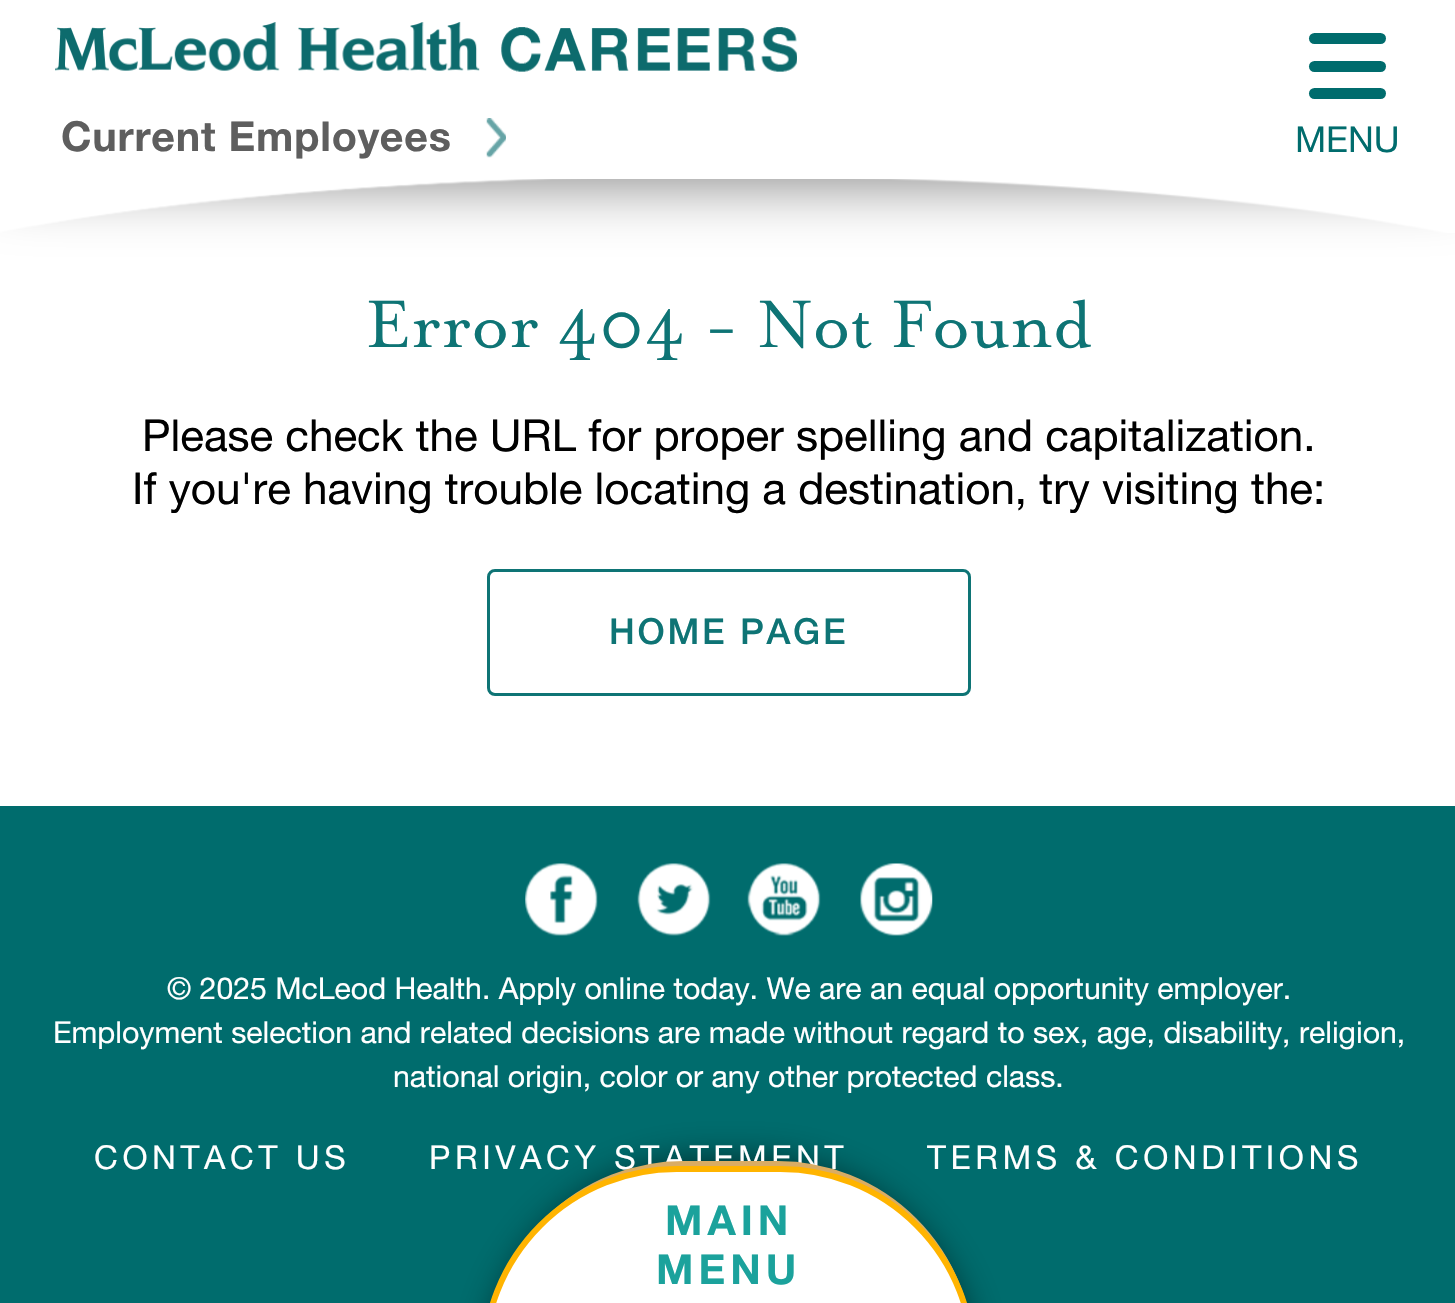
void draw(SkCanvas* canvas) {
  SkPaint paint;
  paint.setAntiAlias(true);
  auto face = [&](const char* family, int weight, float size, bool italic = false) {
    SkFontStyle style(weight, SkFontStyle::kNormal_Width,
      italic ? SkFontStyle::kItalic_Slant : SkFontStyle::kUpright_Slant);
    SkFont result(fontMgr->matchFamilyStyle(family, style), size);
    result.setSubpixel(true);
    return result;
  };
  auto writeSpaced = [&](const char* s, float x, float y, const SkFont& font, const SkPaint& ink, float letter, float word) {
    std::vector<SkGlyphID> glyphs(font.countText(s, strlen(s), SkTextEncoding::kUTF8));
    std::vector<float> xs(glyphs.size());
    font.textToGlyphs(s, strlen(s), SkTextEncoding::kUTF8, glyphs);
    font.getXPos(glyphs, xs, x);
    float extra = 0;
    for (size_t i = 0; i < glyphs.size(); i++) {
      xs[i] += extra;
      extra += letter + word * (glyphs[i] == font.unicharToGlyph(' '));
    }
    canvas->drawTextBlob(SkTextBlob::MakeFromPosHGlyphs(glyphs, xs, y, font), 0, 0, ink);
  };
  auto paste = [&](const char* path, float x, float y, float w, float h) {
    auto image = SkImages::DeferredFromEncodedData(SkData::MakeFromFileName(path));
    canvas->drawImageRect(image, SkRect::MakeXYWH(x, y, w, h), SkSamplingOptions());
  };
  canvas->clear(0xffffffff);
  paint.setColor(0x80000000);
  paint.setMaskFilter(SkMaskFilter::MakeBlur(kNormal_SkBlurStyle, 31.5f));
  canvas->drawRect(SkRect::MakeXYWH(-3, -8, 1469, 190), paint);
  paint.setMaskFilter(nullptr);
  paste("img/1.png", 0, 179, 1455, 54);
  paint.setColor(0xffffffff);
  canvas->drawRect(SkRect::MakeXYWH(0, 0, 1455, 179), paint);
  paste("img/2.png", 55, 22, 742, 50);
  paste("img/3.png", 486, 118, 20, 40);
  paint.setColor(0xff006c6d);
  canvas->drawRoundRect(SkRect::MakeXYWH(1309, 33, 77, 11), 5.5f, 5.5f, paint);
  canvas->drawRoundRect(SkRect::MakeXYWH(1309, 61, 77, 11), 5.5f, 5.5f, paint);
  canvas->drawRoundRect(SkRect::MakeXYWH(1309, 88, 77, 11), 5.5f, 5.5f, paint);
  paint.setStroke(true);
  paint.setStrokeWidth(3);
  paint.setColor(0xff0e7475);
  canvas->drawRoundRect(SkRect::MakeXYWH(488.5f, 570.5f, 481, 124), 6.5f, 6.5f, paint);
  paint.setStroke(false);
  paint.setColor(0xff006c6d);
  canvas->drawRect(SkRect::MakeXYWH(0, 806, 1455, 497), paint);
  paste("img/4.png", 525, 863, 73, 73);
  paste("img/5.png", 637, 863, 74, 73);
  paste("img/6.png", 747, 863, 74, 73);
  paste("img/7.png", 860, 863, 73, 73);
  paint.setColor(0xa1000000);
  paint.setMaskFilter(SkMaskFilter::MakeBlur(kNormal_SkBlurStyle, 18));
  canvas->drawRoundRect(SkRect::MakeXYWH(487, 1161, 487, 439), 243, 243, paint);
  paint.setMaskFilter(nullptr);
  auto f0 = face("Helvetica Neue", 700, 41.25f);
  paint.setColor(0xff5e5e5e);
  writeSpaced("Current Employees", 61, 151, f0, paint, 0.8f, 0);
  auto f1 = face("Helvetica Neue", 400, 35.75f);
  paint.setColor(0xff006c6d);
  canvas->drawString("MENU", 1295, 152, f1, paint);
  auto f2 = face("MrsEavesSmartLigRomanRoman", 400, 77);
  paint.setColor(0xff0e7475);
  canvas->drawString("Error 404 - Not Found", 366, 347, f2, paint);
  auto f3 = face("Helvetica Neue", 400, 44);
  paint.setColor(0xff000000);
  canvas->drawString("Please check the URL for proper spelling and capitalization.", 142, 451, f3, paint);
  canvas->drawString("If you're having trouble locating a destination, try visiting the:", 132, 504, f3, paint);
  auto f4 = face("Helvetica Neue", 500, 35.75f);
  paint.setColor(0xff0e7475);
  writeSpaced("HOME PAGE", 609, 644, f4, paint, 2.75f, 0);
  auto f5 = face("Helvetica Neue", 400, 30.25f);
  paint.setColor(0xffffffff);
  {
    const struct { const char* s; float x, y; } items[] = {
      {"© 2025 McLeod Health. Apply online today. We are an equal opportunity employer.", 167, 999},
      {"Employment selection and related decisions are made without regard to sex, age, disability, religion,", 53, 1043},
      {"national origin, color or any other protected class.", 393, 1087},
    };
    for (auto [s, x, y] : items) {
      canvas->drawString(s, x, y, f5, paint);
    }
  }
  auto f6 = face("Helvetica Neue", 400, 33);
  {
    const struct { const char* s; float x, y; } items[] = {
      {"CONTACT US", 94, 1169},
      {"PRIVACY STATEMENT", 429, 1169},
      {"TERMS & CONDITIONS", 927, 1169},
    };
    for (auto [s, x, y] : items) {
      writeSpaced(s, x, y, f6, paint, 4.6f, 0);
    }
  }
  paint.setStroke(true);
  paint.setStrokeWidth(8);
  paint.setColor(0xffd9ac64);
  canvas->drawRoundRect(SkRect::MakeXYWH(491, 1165, 479, 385), 239, 239, paint);
  paint.setStroke(false);
  paint.setColor(0xffffffff);
  canvas->drawRoundRect(SkRect::MakeXYWH(484, 1169, 489, 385), 244.5f, 244.5f, paint);
  paint.setStroke(true);
  paint.setStrokeWidth(6);
  paint.setColor(0xffffb400);
  canvas->drawRoundRect(SkRect::MakeXYWH(484, 1169, 489, 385), 244.5f, 244.5f, paint);
  paint.setStroke(false);
  paint.setColor(0xff1ba29c);
  writeSpaced("MAIN", 665, 1235, f0, paint, 5, 0);
  writeSpaced("MENU", 656, 1284, f0, paint, 5, 0);
}
